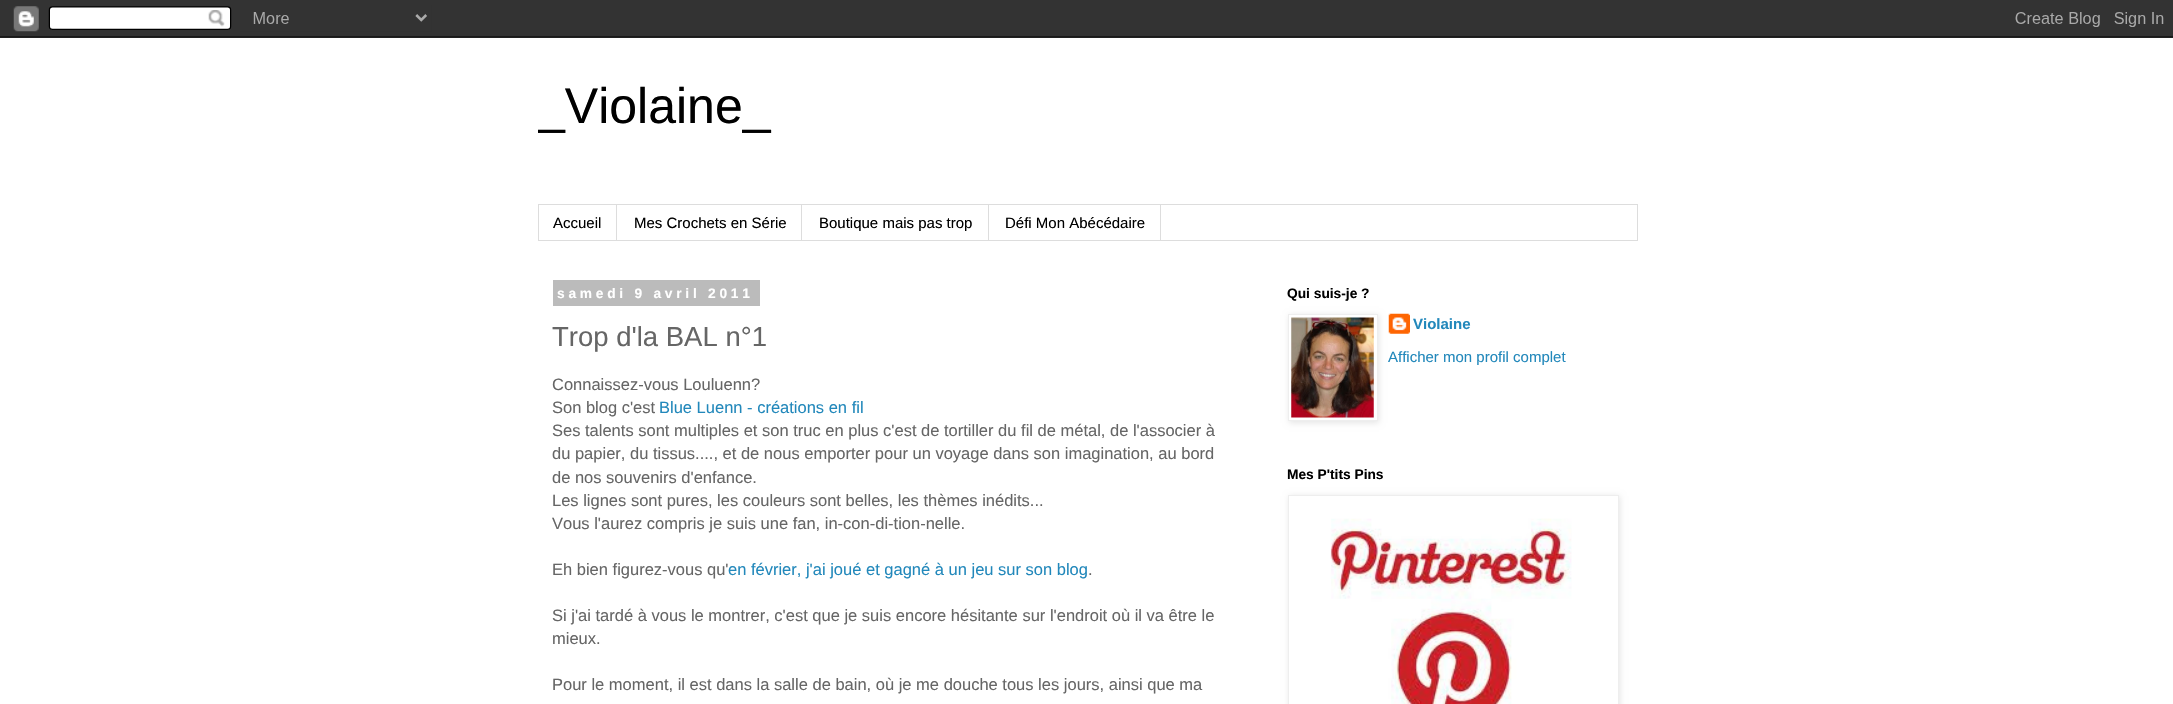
void draw(SkCanvas* canvas) {
  SkPaint paint;
  paint.setAntiAlias(true);
  auto face = [&](const char* family, int weight, float size, bool italic = false) {
    SkFontStyle style(weight, SkFontStyle::kNormal_Width,
      italic ? SkFontStyle::kItalic_Slant : SkFontStyle::kUpright_Slant);
    SkFont result(fontMgr->matchFamilyStyle(family, style), size);
    result.setSubpixel(true);
    return result;
  };
  auto writeSpaced = [&](const char* s, float x, float y, const SkFont& font, const SkPaint& ink, float letter, float word) {
    std::vector<SkGlyphID> glyphs(font.countText(s, strlen(s), SkTextEncoding::kUTF8));
    std::vector<float> xs(glyphs.size());
    font.textToGlyphs(s, strlen(s), SkTextEncoding::kUTF8, glyphs);
    font.getXPos(glyphs, xs, x);
    float extra = 0;
    for (size_t i = 0; i < glyphs.size(); i++) {
      xs[i] += extra;
      extra += letter + word * (glyphs[i] == font.unicharToGlyph(' '));
    }
    canvas->drawTextBlob(SkTextBlob::MakeFromPosHGlyphs(glyphs, xs, y, font), 0, 0, ink);
  };
  auto paste = [&](const char* path, float x, float y, float w, float h) {
    auto image = SkImages::DeferredFromEncodedData(SkData::MakeFromFileName(path));
    canvas->drawImageRect(image, SkRect::MakeXYWH(x, y, w, h), SkSamplingOptions());
  };
  canvas->clear(0xffffffff);
  paste("img/1.png", 0, 0, 2173, 38);
  paint.setStroke(true);
  paint.setStrokeWidth(1);
  paint.setColor(0xffdddddd);
  canvas->drawRect(SkRect::MakeXYWH(538.5f, 204.5f, 1099, 36), paint);
  paint.setStroke(false);
  {
    const struct { float x, y, w, h; SkColor color; } items[] = {
      {616, 205, 1, 35, 0xffdddddd},
      {801, 205, 1, 35, 0xffdddddd},
      {988, 205, 1, 35, 0xffdddddd},
      {1160, 205, 1, 35, 0xffdddddd},
      {553, 280, 207, 26, 0xffbbbbbb},
    };
    for (auto [x, y, w, h, color] : items) {
      paint.setColor(color);
      canvas->drawRect(SkRect::MakeXYWH(x, y, w, h), paint);
    }
  }
  paste("img/3.png", 1388, 313, 22, 21);
  paint.setColor(0x1a000000);
  paint.setMaskFilter(SkMaskFilter::MakeBlur(kNormal_SkBlurStyle, 3));
  canvas->drawRect(SkRect::MakeXYWH(1289, 315, 90, 108), paint);
  paint.setMaskFilter(nullptr);
  paint.setColor(0xffffffff);
  canvas->drawRect(SkRect::MakeXYWH(1288.5f, 314.5f, 89, 106), paint);
  paint.setStroke(true);
  paint.setColor(0xffeeeeee);
  canvas->drawRect(SkRect::MakeXYWH(1288.5f, 314.5f, 89, 106), paint);
  paste("img/2.png", 1291, 317, 83, 101);
  paint.setStroke(false);
  paint.setColor(0x1a000000);
  paint.setMaskFilter(SkMaskFilter::MakeBlur(kNormal_SkBlurStyle, 3));
  canvas->drawRect(SkRect::MakeXYWH(1289, 496, 331, 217), paint);
  paint.setMaskFilter(nullptr);
  paint.setColor(0xffffffff);
  canvas->drawRect(SkRect::MakeXYWH(1288.5f, 495.5f, 330, 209), paint);
  paint.setStroke(true);
  paint.setColor(0xffeeeeee);
  canvas->drawRect(SkRect::MakeXYWH(1288.5f, 495.5f, 330, 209), paint);
  paste("img/4.png", 1330, 518, 242, 186);
  canvas->save();
  canvas->clipRect(SkRect::MakeXYWH(538, 50, 1100, 155));
  auto f0 = face("Liberation Sans", 400, 50);
  paint.setStroke(false);
  paint.setColor(0xff000000);
  canvas->drawString("_Violaine_", 537, 123, f0, paint);
  canvas->restore();
  auto f1 = face("Liberation Sans", 400, 15);
  {
    const struct { const char* s; float x, y; } items[] = {
      {"Accueil", 553, 228},
      {"Mes Crochets en Série", 634, 228},
      {"Boutique mais pas trop", 819, 228},
      {"Défi Mon Abécédaire", 1005, 228},
    };
    for (auto [s, x, y] : items) {
      canvas->drawString(s, x, y, f1, paint);
    }
  }
  auto f2 = face("Liberation Sans", 700, 13.75f);
  paint.setColor(0xffffffff);
  writeSpaced("samedi 9 avril 2011", 557, 298, f2, paint, 3.75f, 0);
  auto f3 = face("Liberation Sans", 400, 27.5f);
  paint.setColor(0xff666666);
  canvas->drawString("Trop d'la BAL n°1", 552, 346, f3, paint);
  auto f4 = face("Liberation Sans", 400, 16.5f);
  canvas->drawString("Connaissez-vous Louluenn?", 552, 390, f4, paint);
  canvas->drawString("Son blog c'est", 552, 413, f4, paint);
  paint.setColor(0xff2288bb);
  canvas->drawString("Blue Luenn - créations en fil", 659, 413, f4, paint);
  paint.setColor(0xff666666);
  {
    const struct { const char* s; float x, y; } items[] = {
      {"Ses talents sont multiples et son truc en plus c'est de tortiller du fil de métal, de l'associer à", 552, 436},
      {"du papier, du tissus...., et de nous emporter pour un voyage dans son imagination, au bord", 552, 459},
      {"de nos souvenirs d'enfance.", 552, 483},
      {"Les lignes sont pures, les couleurs sont belles, les thèmes inédits...", 552, 506},
      {"Vous l'aurez compris je suis une fan, in-con-di-tion-nelle.", 552, 529},
      {"Eh bien figurez-vous qu'", 552, 575},
    };
    for (auto [s, x, y] : items) {
      canvas->drawString(s, x, y, f4, paint);
    }
  }
  paint.setColor(0xff2288bb);
  canvas->drawString("en février, j'ai joué et gagné à un jeu sur son blog", 728, 575, f4, paint);
  paint.setColor(0xff666666);
  {
    const struct { const char* s; float x, y; } items[] = {
      {".", 1088, 575},
      {"Si j'ai tardé à vous le montrer, c'est que je suis encore hésitante sur l'endroit où il va être le", 552, 621},
      {"mieux.", 552, 644},
      {"Pour le moment, il est dans la salle de bain, où je me douche tous les jours, ainsi que ma", 552, 690},
    };
    for (auto [s, x, y] : items) {
      canvas->drawString(s, x, y, f4, paint);
    }
  }
  paint.setColor(0xff000000);
  canvas->drawString("Qui suis-je ?", 1287, 298, f2, paint);
  auto f5 = face("Liberation Sans", 700, 15);
  paint.setColor(0xff2288bb);
  canvas->drawString("Violaine", 1413, 329, f5, paint);
  canvas->drawString("Afficher mon profil complet", 1388, 362, f1, paint);
  paint.setColor(0xff000000);
  canvas->drawString("Mes P'tits Pins", 1287, 479, f2, paint);
}
